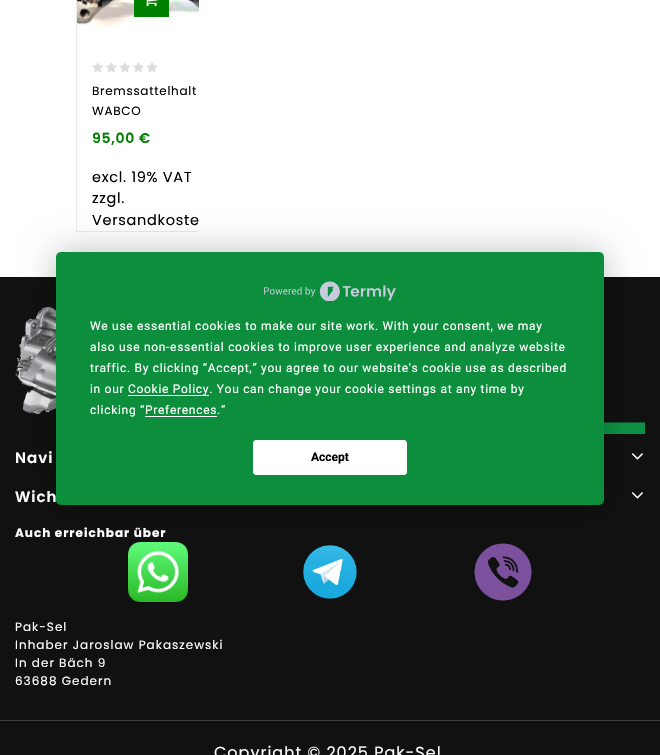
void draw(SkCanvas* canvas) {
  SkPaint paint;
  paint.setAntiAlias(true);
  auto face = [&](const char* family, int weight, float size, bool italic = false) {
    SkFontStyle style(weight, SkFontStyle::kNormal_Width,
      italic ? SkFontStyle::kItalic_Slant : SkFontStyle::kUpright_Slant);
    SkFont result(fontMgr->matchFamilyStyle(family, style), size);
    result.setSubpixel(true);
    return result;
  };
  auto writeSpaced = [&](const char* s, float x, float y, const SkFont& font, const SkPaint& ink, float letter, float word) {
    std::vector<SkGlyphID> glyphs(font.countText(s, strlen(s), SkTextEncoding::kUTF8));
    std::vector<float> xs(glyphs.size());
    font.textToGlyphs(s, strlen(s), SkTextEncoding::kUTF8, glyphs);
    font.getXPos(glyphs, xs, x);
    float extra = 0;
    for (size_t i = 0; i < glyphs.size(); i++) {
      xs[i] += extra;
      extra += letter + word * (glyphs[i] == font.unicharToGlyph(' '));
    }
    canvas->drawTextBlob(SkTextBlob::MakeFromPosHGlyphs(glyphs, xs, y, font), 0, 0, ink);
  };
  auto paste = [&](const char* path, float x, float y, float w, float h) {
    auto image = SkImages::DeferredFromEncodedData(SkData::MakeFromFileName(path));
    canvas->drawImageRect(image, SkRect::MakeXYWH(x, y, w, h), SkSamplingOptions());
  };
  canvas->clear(0xffffffff);
  canvas->save();
  canvas->clipRect(SkRect::MakeXYWH(61, 0, 138, 247));
  paint.setStroke(true);
  paint.setStrokeWidth(1);
  paint.setColor(0xffe9e9e9);
  canvas->drawRect(SkRect::MakeXYWH(76.5f, -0.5f, 149, 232), paint);
  canvas->restore();
  paste("img/1.png", 77, 0, 122, 29);
  paint.setStroke(false);
  paint.setColor(0xff008000);
  canvas->drawRect(SkRect::MakeXYWH(134, 0, 35, 17), paint);
  paste("img/2.png", 146, 0, 12, 7);
  paste("img/3.png", 92, 62, 66, 11);
  paint.setColor(0xff111111);
  canvas->drawRect(SkRect::MakeXYWH(0, 277, 660, 478), paint);
  paste("img/4.png", 15, 307, 630, 127);
  paste("img/5.png", 631, 453, 12, 7);
  paste("img/5.png", 631, 492, 12, 7);
  paste("img/6.png", 128, 542, 60, 60);
  paste("img/7.png", 303, 545, 54, 54);
  paste("img/8.png", 474, 543, 58, 58);
  paint.setColor(0xff3e3e3e);
  canvas->drawRect(SkRect::MakeXYWH(0, 720, 660, 1), paint);
  paint.setColor(0x40000000);
  paint.setMaskFilter(SkMaskFilter::MakeBlur(kNormal_SkBlurStyle, 17.5f));
  canvas->drawRoundRect(SkRect::MakeXYWH(56, 252, 548, 253), 5, 5, paint);
  paint.setMaskFilter(nullptr);
  paint.setColor(0xff0c8e3c);
  canvas->drawRoundRect(SkRect::MakeXYWH(56, 252, 548, 253), 5, 5, paint);
  paste("img/9.png", 264, 281, 132, 20);
  paint.setColor(0xffffffff);
  canvas->drawRect(SkRect::MakeXYWH(128, 395, 81, 1), paint);
  canvas->drawRect(SkRect::MakeXYWH(145, 416, 72, 1), paint);
  canvas->drawRoundRect(SkRect::MakeXYWH(253.5f, 440.5f, 153, 34), 2.5f, 2.5f, paint);
  paint.setStroke(true);
  canvas->drawRoundRect(SkRect::MakeXYWH(253.5f, 440.5f, 153, 34), 2.5f, 2.5f, paint);
  auto f0 = face("Poppins", 400, 12);
  paint.setStroke(false);
  paint.setColor(0xff000000);
  writeSpaced("Bremssattelhalt", 92, 95, f0, paint, 0.7f, 0);
  writeSpaced("WABCO", 92, 115, f0, paint, 0.7f, 0);
  auto f1 = face("Poppins", 600, 14);
  paint.setColor(0xff008000);
  writeSpaced("95,00 €", 92, 143, f1, paint, 0.7f, 0);
  auto f2 = face("Poppins", 400, 14.5f);
  paint.setColor(0xff000000);
  {
    const struct { const char* s; float x, y; } items[] = {
      {"excl. 19% VAT", 92, 182},
      {"zzgl.", 92, 203},
      {"Versandkoste", 92, 225},
    };
    for (auto [s, x, y] : items) {
      writeSpaced(s, x, y, f2, paint, 0.7f, 0);
    }
  }
  auto f3 = face("Poppins", 600, 15);
  paint.setColor(0xffffffff);
  writeSpaced("Navi", 15, 463, f3, paint, 1, 0);
  writeSpaced("Wich", 15, 502, f3, paint, 1, 0);
  auto f4 = face("Poppins", 700, 12);
  writeSpaced("Auch erreichbar über", 15, 537, f4, paint, 1, 0);
  {
    const struct { const char* s; float x, y; } items[] = {
      {"Pak-Sel", 15, 631},
      {"Inhaber Jaroslaw Pakaszewski", 15, 649},
      {"In der Bäch 9", 15, 667},
      {"63688 Gedern", 15, 685},
    };
    for (auto [s, x, y] : items) {
      writeSpaced(s, x, y, f0, paint, 1, 0);
    }
  }
  auto f5 = face("Poppins", 400, 16);
  writeSpaced("Copyright © 2025 Pak-Sel", 214, 758, f5, paint, 1, 0);
  auto f6 = face("Roboto", 400, 12);
  {
    const struct { const char* s; float x, y; } items[] = {
      {"We use essential cookies to make our site work. With your consent, we may", 90, 330},
      {"also use non-essential cookies to improve user experience and analyze website", 90, 351},
      {"traffic. By clicking “Accept,” you agree to our website's cookie use as described", 90, 372},
      {"in our", 90, 393},
      {"Cookie Policy. You can change your cookie settings at any time by", 128, 393},
      {"clicking “Preferences.”", 90, 414},
    };
    for (auto [s, x, y] : items) {
      writeSpaced(s, x, y, f6, paint, 0.7f, 0);
    }
  }
  auto f7 = face("Roboto", 700, 12);
  paint.setColor(0xff000000);
  canvas->drawString("Accept", 311, 461, f7, paint);
}
